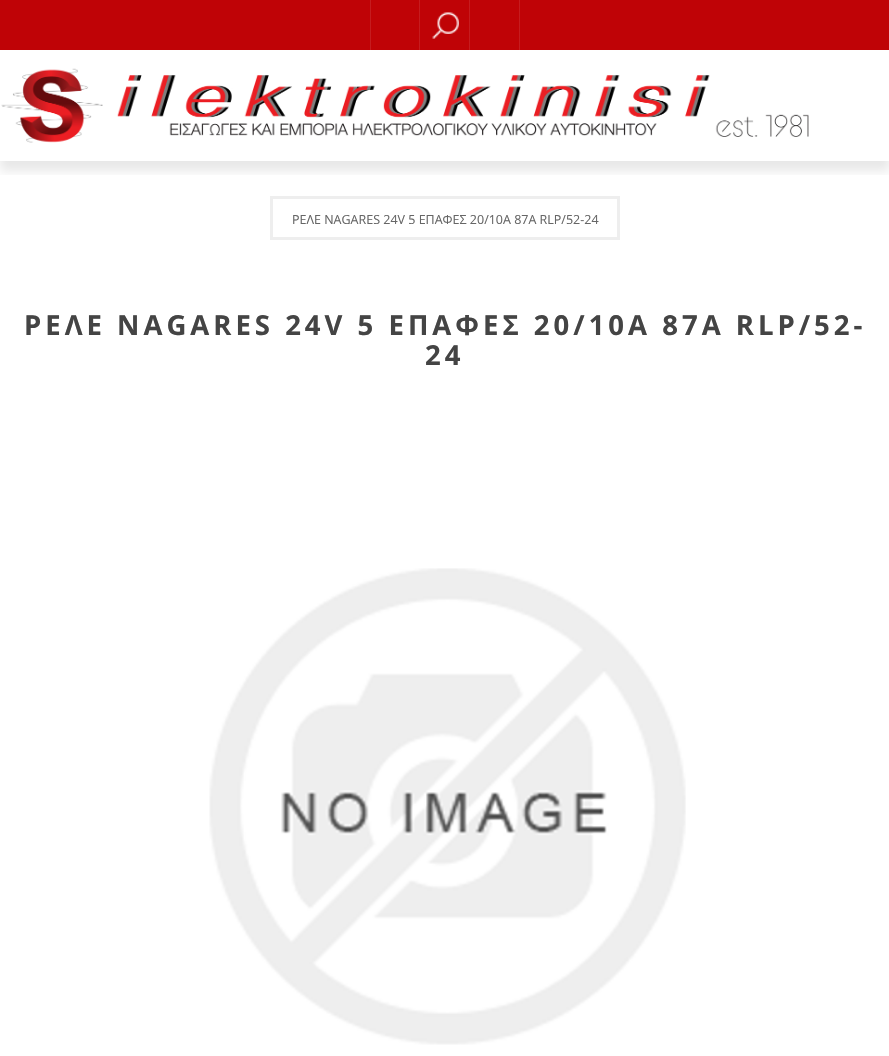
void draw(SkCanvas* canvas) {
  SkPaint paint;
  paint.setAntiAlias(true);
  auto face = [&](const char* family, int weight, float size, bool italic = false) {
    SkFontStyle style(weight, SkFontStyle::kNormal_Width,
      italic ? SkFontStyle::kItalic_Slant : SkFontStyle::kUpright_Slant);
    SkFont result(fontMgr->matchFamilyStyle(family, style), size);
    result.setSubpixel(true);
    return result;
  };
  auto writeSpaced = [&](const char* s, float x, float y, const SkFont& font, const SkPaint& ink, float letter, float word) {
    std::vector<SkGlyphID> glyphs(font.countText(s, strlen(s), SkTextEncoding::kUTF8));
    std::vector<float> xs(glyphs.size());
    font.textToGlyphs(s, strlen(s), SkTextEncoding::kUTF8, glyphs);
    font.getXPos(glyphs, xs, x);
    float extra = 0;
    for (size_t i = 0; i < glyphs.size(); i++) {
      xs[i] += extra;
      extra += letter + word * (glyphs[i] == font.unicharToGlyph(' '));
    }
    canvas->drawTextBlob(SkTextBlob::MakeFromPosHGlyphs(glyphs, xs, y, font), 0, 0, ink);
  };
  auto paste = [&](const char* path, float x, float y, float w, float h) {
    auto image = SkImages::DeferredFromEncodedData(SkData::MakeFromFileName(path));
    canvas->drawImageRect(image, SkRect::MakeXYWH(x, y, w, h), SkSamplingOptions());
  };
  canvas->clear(0xffffffff);
  canvas->save();
  canvas->clipRect(SkRect::MakeXYWH(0, 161, 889, 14));
  paint.setColor(0x17000000);
  paint.setMaskFilter(SkMaskFilter::MakeBlur(kNormal_SkBlurStyle, 5));
  canvas->drawRect(SkRect::MakeXYWH(0, 60, 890, 111), paint);
  paint.setMaskFilter(nullptr);
  canvas->restore();
  {
    const struct { float x, y, w, h; SkColor color; } items[] = {
      {0, 0, 889, 50, 0xffbf0306},
      {419, 0, 1, 50, 0xffc51c1f},
      {370, 0, 1, 50, 0xffc51c1f},
    };
    for (auto [x, y, w, h, color] : items) {
      paint.setColor(color);
      canvas->drawRect(SkRect::MakeXYWH(x, y, w, h), paint);
    }
  }
  paste("img/1.png", 432, 12, 27, 27);
  canvas->drawRect(SkRect::MakeXYWH(469, 0, 1, 50), paint);
  canvas->drawRect(SkRect::MakeXYWH(519, 0, 1, 50), paint);
  paste("img/2.png", 1, 68, 808, 75);
  paint.setStroke(true);
  paint.setStrokeWidth(3);
  paint.setColor(0xffeeeeee);
  canvas->drawRect(SkRect::MakeXYWH(271.5f, 197.5f, 347, 41), paint);
  paste("img/3.png", 209, 568, 477, 477);
  auto f0 = face("Open Sans", 400, 12.5f);
  paint.setStroke(false);
  paint.setColor(0xff666666);
  canvas->drawString("ΡΕΛΕ ΝΑGARES 24V 5 ΕΠΑΦΕΣ 20/10A 87A RLP/52-24", 292, 224, f0, paint);
  auto f1 = face("Open Sans", 700, 27.5f);
  paint.setColor(0xff444444);
  writeSpaced("ΡΕΛΕ ΝΑGARES 24V 5 ΕΠΑΦΕΣ 20/10A 87A RLP/52-", 24, 335, f1, paint, 4, 0);
  writeSpaced("24", 425, 365, f1, paint, 4, 0);
}
